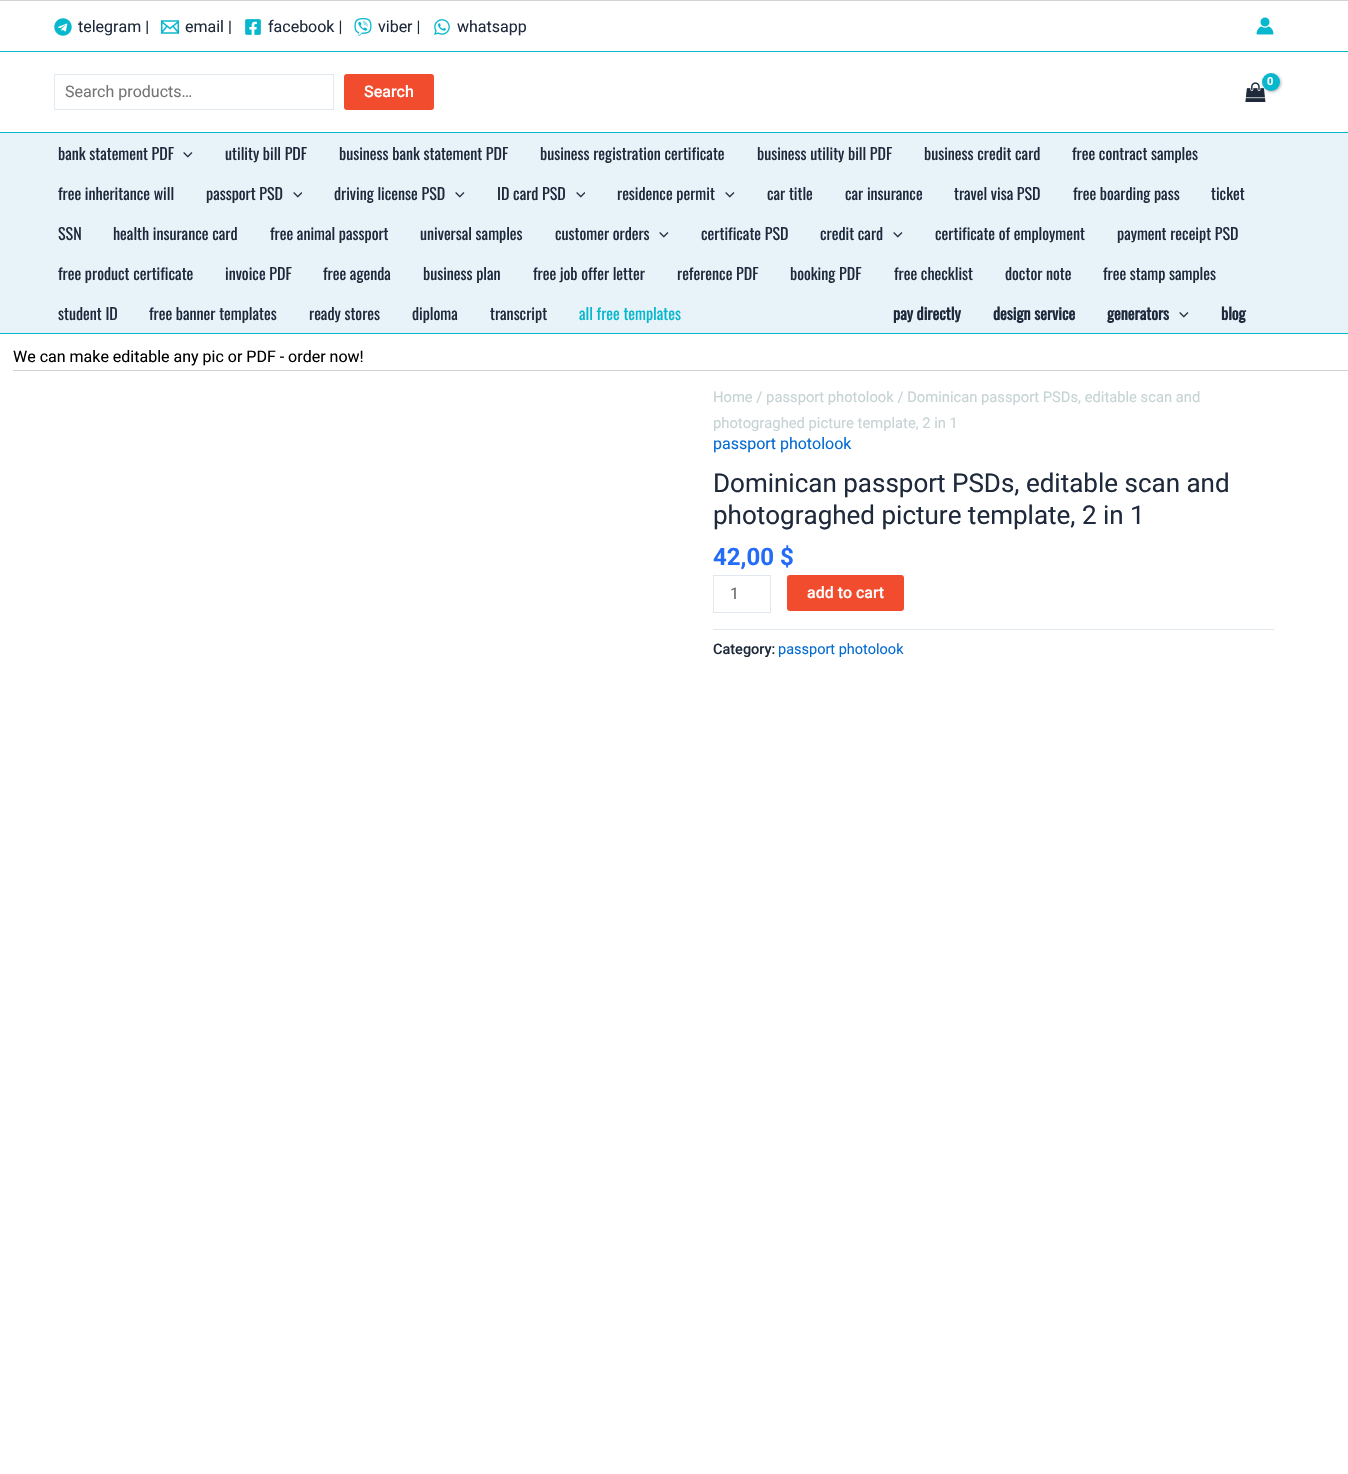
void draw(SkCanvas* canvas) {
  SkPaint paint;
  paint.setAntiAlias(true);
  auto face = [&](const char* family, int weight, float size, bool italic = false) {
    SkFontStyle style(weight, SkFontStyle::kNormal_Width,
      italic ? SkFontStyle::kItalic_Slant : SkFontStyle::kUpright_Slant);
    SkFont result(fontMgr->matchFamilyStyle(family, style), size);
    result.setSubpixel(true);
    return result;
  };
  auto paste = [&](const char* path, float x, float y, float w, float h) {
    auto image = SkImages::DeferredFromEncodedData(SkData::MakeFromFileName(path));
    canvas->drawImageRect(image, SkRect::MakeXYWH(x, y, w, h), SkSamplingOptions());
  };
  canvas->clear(0xffffffff);
  paint.setColor(0xffd3d3d3);
  canvas->drawRect(SkRect::MakeXYWH(0, 0, 1348, 1), paint);
  paint.setColor(0xff07b7cd);
  canvas->drawRect(SkRect::MakeXYWH(0, 51, 1348, 1), paint);
  paste("img/1.png", 54, 18, 18, 18);
  paste("img/2.png", 161, 20, 18, 14);
  paste("img/3.png", 245, 19, 16, 16);
  paste("img/4.png", 354, 18, 18, 18);
  paste("img/5.png", 434, 19, 16, 16);
  paste("img/6.png", 1256, 17, 18, 18);
  canvas->drawRect(SkRect::MakeXYWH(0, 132, 1348, 1), paint);
  paste("img/7.png", 1245, 82, 21, 20);
  paint.setColor(0x4d000000);
  paint.setMaskFilter(SkMaskFilter::MakeBlur(kNormal_SkBlurStyle, 1.5f));
  canvas->drawRoundRect(SkRect::MakeXYWH(1263, 74, 18, 18), 9, 9, paint);
  paint.setMaskFilter(nullptr);
  paint.setColor(0xff07b7cd);
  canvas->drawCircle(1271, 82, 9, paint);
  paint.setStroke(true);
  paint.setStrokeWidth(1);
  paint.setColor(0xffe2e8f0);
  canvas->drawRect(SkRect::MakeXYWH(54.5f, 74.5f, 279, 35), paint);
  paint.setStroke(false);
  paint.setColor(0xfff14c2e);
  canvas->drawRoundRect(SkRect::MakeXYWH(344, 74, 90, 36), 3, 3, paint);
  paint.setColor(0xffe7f2f9);
  canvas->drawRect(SkRect::MakeXYWH(0, 133, 1348, 200), paint);
  paint.setColor(0xff07b7cd);
  canvas->drawRect(SkRect::MakeXYWH(0, 333, 1348, 1), paint);
  paste("img/8.png", 183, 152, 10, 6);
  paste("img/9.png", 293, 192, 9, 6);
  paste("img/8.png", 455, 192, 10, 6);
  paste("img/9.png", 576, 192, 9, 6);
  paste("img/8.png", 725, 192, 10, 6);
  paste("img/8.png", 659, 232, 10, 6);
  paste("img/8.png", 893, 232, 10, 6);
  paste("img/8.png", 1179, 312, 10, 6);
  paint.setColor(0xffd3d3d3);
  canvas->drawRect(SkRect::MakeXYWH(13, 370, 1335, 1), paint);
  paint.setStroke(true);
  paint.setColor(0xffe2e8f0);
  canvas->drawRect(SkRect::MakeXYWH(713.5f, 575.5f, 57, 37), paint);
  paint.setStroke(false);
  paint.setColor(0xfff14c2e);
  canvas->drawRoundRect(SkRect::MakeXYWH(787, 575, 117, 36), 3, 3, paint);
  paint.setColor(0xffe2e8f0);
  canvas->drawRect(SkRect::MakeXYWH(713, 629, 561, 1), paint);
  auto f0 = face("Roboto", 400, 16);
  paint.setColor(0xff1e293b);
  {
    const struct { const char* s; float x, y; } items[] = {
      {"telegram |", 78, 32},
      {"email |", 185, 32},
      {"facebook |", 268, 32},
      {"viber |", 378, 32},
      {"whatsapp", 457, 32},
    };
    for (auto [s, x, y] : items) {
      canvas->drawString(s, x, y, f0, paint);
    }
  }
  auto f1 = face("Roboto", 700, 11);
  paint.setColor(0xffffffff);
  canvas->drawString("0", 1267, 85, f1, paint);
  paint.setColor(0xff757575);
  canvas->drawString("Search products…", 65, 97, f0, paint);
  auto f2 = face("Roboto", 500, 16);
  paint.setColor(0xffffffff);
  canvas->drawString("Search", 364, 97, f2, paint);
  auto f3 = face("Oswald", 400, 16);
  paint.setColor(0xff1e293b);
  {
    const struct { const char* s; float x, y; } items[] = {
      {"bank statement PDF", 58, 160},
      {"utility bill PDF", 225, 160},
      {"business bank statement PDF", 339, 160},
      {"business registration certificate", 540, 160},
      {"business utility bill PDF", 757, 160},
      {"business credit card", 924, 160},
      {"free contract samples", 1072, 160},
      {"free inheritance will", 58, 200},
      {"passport PSD", 206, 200},
      {"driving license PSD", 334, 200},
      {"ID card PSD", 497, 200},
      {"residence permit", 617, 200},
      {"car title", 767, 200},
      {"car insurance", 845, 200},
      {"travel visa PSD", 954, 200},
      {"free boarding pass", 1073, 200},
      {"ticket", 1211, 200},
      {"SSN", 58, 240},
      {"health insurance card", 113, 240},
      {"free animal passport", 270, 240},
      {"universal samples", 420, 240},
      {"customer orders", 555, 240},
      {"certificate PSD", 701, 240},
      {"credit card", 820, 240},
      {"certificate of employment", 935, 240},
      {"payment receipt PSD", 1117, 240},
      {"free product certificate", 58, 280},
      {"invoice PDF", 225, 280},
      {"free agenda", 323, 280},
      {"business plan", 423, 280},
      {"free job offer letter", 533, 280},
      {"reference PDF", 677, 280},
      {"booking PDF", 790, 280},
      {"free checklist", 894, 280},
      {"doctor note", 1005, 280},
      {"free stamp samples", 1103, 280},
      {"student ID", 58, 320},
      {"free banner templates", 149, 320},
      {"ready stores", 309, 320},
      {"diploma", 412, 320},
      {"transcript", 490, 320},
    };
    for (auto [s, x, y] : items) {
      canvas->drawString(s, x, y, f3, paint);
    }
  }
  paint.setColor(0xff07b7cd);
  canvas->drawString("all free templates", 579, 320, f3, paint);
  auto f4 = face("Oswald", 700, 16);
  paint.setColor(0xff1e293b);
  {
    const struct { const char* s; float x, y; } items[] = {
      {"pay directly", 893, 320},
      {"design service", 993, 320},
      {"generators", 1107, 320},
      {"blog", 1221, 320},
    };
    for (auto [s, x, y] : items) {
      canvas->drawString(s, x, y, f4, paint);
    }
  }
  paint.setColor(0xff000000);
  canvas->drawString("We can make editable any pic or PDF - order now!", 13, 362, f0, paint);
  auto f5 = face("Roboto", 400, 14.75f);
  paint.setColor(0xffc6d3d4);
  canvas->drawString("Home / passport photolook / Dominican passport PSDs, editable scan and", 713, 402, f5, paint);
  canvas->drawString("photograghed picture template, 2 in 1", 713, 428, f5, paint);
  paint.setColor(0xff046bd2);
  canvas->drawString("passport photolook", 713, 449, f0, paint);
  auto f6 = face("Roboto", 400, 26);
  paint.setColor(0xff1e293b);
  canvas->drawString("Dominican passport PSDs, editable scan and", 713, 492, f6, paint);
  canvas->drawString("photograghed picture template, 2 in 1", 713, 524, f6, paint);
  auto f7 = face("Roboto", 700, 24);
  paint.setColor(0xff246bf7);
  canvas->drawString("42,00 $", 713, 565, f7, paint);
  paint.setColor(0xff666666);
  canvas->drawString("1", 730, 599, f0, paint);
  paint.setColor(0xffffffff);
  canvas->drawString("add to cart", 807, 598, f2, paint);
  auto f8 = face("Roboto", 500, 14.5f);
  paint.setColor(0xff1e293b);
  canvas->drawString("Category:", 713, 654, f8, paint);
  auto f9 = face("Roboto", 400, 14.5f);
  paint.setColor(0xff046bd2);
  canvas->drawString("passport photolook", 778, 654, f9, paint);
}
